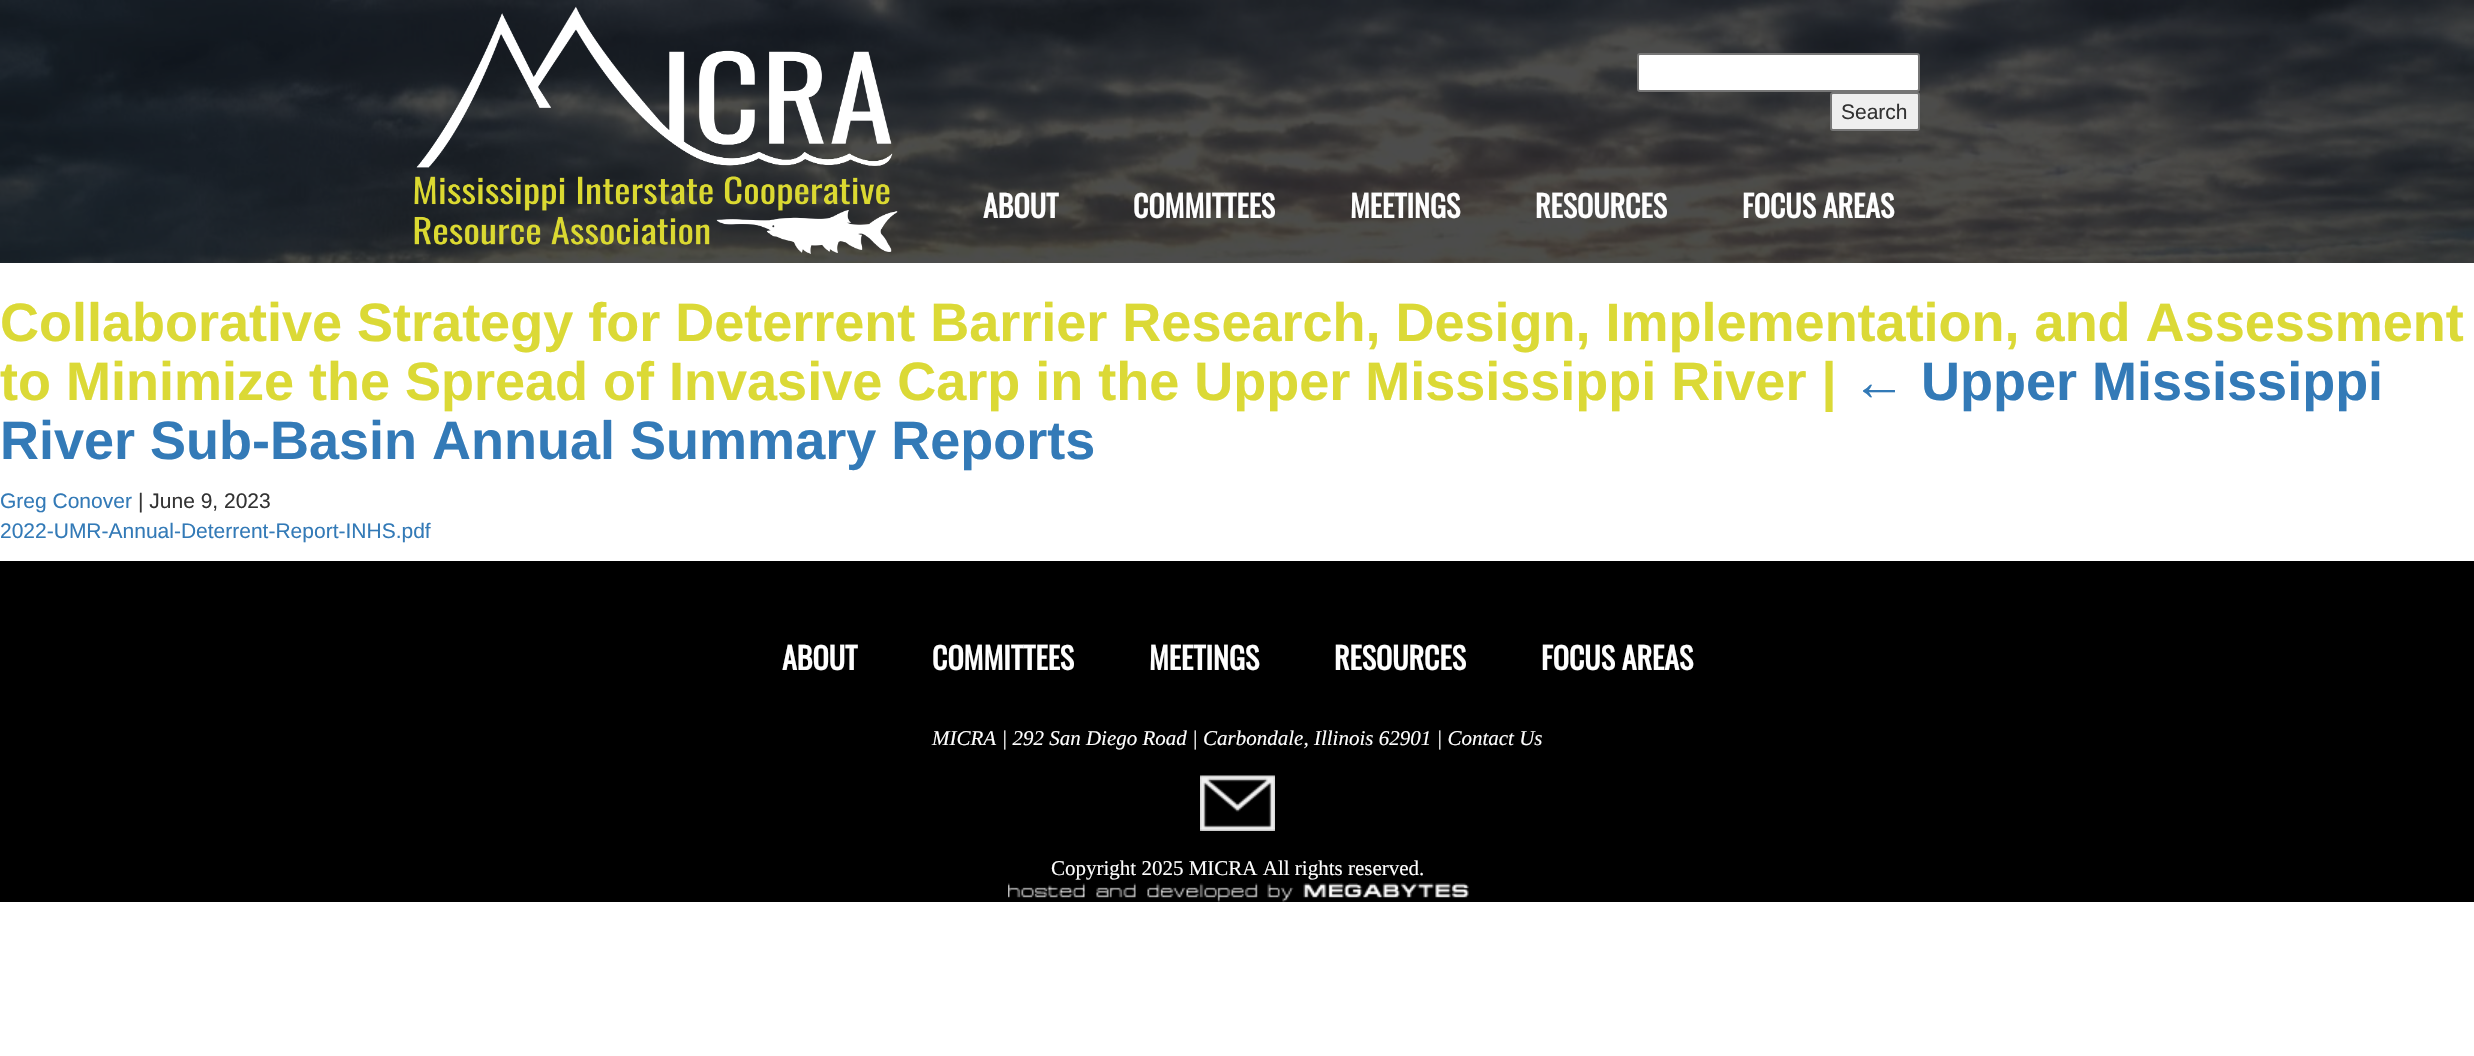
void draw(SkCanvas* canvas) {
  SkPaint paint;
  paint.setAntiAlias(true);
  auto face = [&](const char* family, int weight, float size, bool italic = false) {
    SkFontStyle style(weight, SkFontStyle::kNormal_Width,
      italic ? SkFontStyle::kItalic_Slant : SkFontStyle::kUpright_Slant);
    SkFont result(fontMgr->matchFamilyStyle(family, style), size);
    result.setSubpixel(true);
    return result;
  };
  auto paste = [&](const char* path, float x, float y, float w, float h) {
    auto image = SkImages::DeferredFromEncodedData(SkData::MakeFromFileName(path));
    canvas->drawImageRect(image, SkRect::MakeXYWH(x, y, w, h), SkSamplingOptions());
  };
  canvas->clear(0xffffffff);
  paste("img/1.png", 0, 0, 2474, 263);
  paste("img/2.png", 414, 6, 484, 248);
  paint.setColor(0xffffffff);
  canvas->drawRoundRect(SkRect::MakeXYWH(1638, 54, 281, 37), 2, 2, paint);
  paint.setStroke(true);
  paint.setStrokeWidth(2);
  paint.setColor(0xff767676);
  canvas->drawRoundRect(SkRect::MakeXYWH(1638, 54, 281, 37), 2, 2, paint);
  paint.setStroke(false);
  paint.setColor(0xffefefef);
  canvas->drawRoundRect(SkRect::MakeXYWH(1831, 93, 88, 37), 2, 2, paint);
  paint.setStroke(true);
  paint.setColor(0xff767676);
  canvas->drawRoundRect(SkRect::MakeXYWH(1831, 93, 88, 37), 2, 2, paint);
  paint.setStroke(false);
  paint.setColor(0xff000000);
  canvas->drawRect(SkRect::MakeXYWH(0, 561, 2474, 341), paint);
  paste("img/3.png", 1200, 775, 75, 56);
  paste("img/4.png", 1008, 883, 461, 19);
  auto f0 = face("Liberation Sans", 400, 21);
  paint.setColor(0xff333333);
  canvas->drawString("Search", 1841, 119, f0, paint);
  auto f1 = face("Oswald", 700, 30);
  paint.setColor(0xfffefefe);
  {
    const struct { const char* s; float x, y; } items[] = {
      {"ABOUT", 983, 218},
      {"COMMITTEES", 1133, 218},
      {"MEETINGS", 1350, 218},
      {"RESOURCES", 1535, 218},
      {"FOCUS AREAS", 1742, 218},
    };
    for (auto [s, x, y] : items) {
      canvas->drawString(s, x, y, f1, paint);
    }
  }
  auto f2 = face("Liberation Sans", 700, 54);
  paint.setColor(0xffdbd936);
  canvas->drawString("Collaborative Strategy for Deterrent Barrier Research, Design, Implementation, and Assessment", 0, 341, f2, paint);
  canvas->drawString("to Minimize the Spread of Invasive Carp in the Upper Mississippi River |", 0, 400, f2, paint);
  paint.setColor(0xff337ab7);
  canvas->drawString("← Upper Mississippi", 1852, 400, f2, paint);
  canvas->drawString("River Sub-Basin Annual Summary Reports", 0, 459, f2, paint);
  canvas->drawString("Greg Conover", 0, 508, f0, paint);
  paint.setColor(0xff333333);
  canvas->drawString("| June 9, 2023", 138, 508, f0, paint);
  paint.setColor(0xff337ab7);
  canvas->drawString("2022-UMR-Annual-Deterrent-Report-INHS.pdf", 0, 538, f0, paint);
  paint.setColor(0xfffefefe);
  {
    const struct { const char* s; float x, y; } items[] = {
      {"ABOUT", 782, 670},
      {"COMMITTEES", 932, 670},
      {"MEETINGS", 1149, 670},
      {"RESOURCES", 1334, 670},
      {"FOCUS AREAS", 1541, 670},
    };
    for (auto [s, x, y] : items) {
      canvas->drawString(s, x, y, f1, paint);
    }
  }
  auto f3 = face("Liberation Serif", 400, 21, true);
  canvas->drawString("MICRA | 292 San Diego Road | Carbondale, Illinois 62901 | Contact Us", 932, 745, f3, paint);
  auto f4 = face("Liberation Serif", 400, 21);
  canvas->drawString("Copyright 2025 MICRA All rights reserved.", 1051, 875, f4, paint);
}
